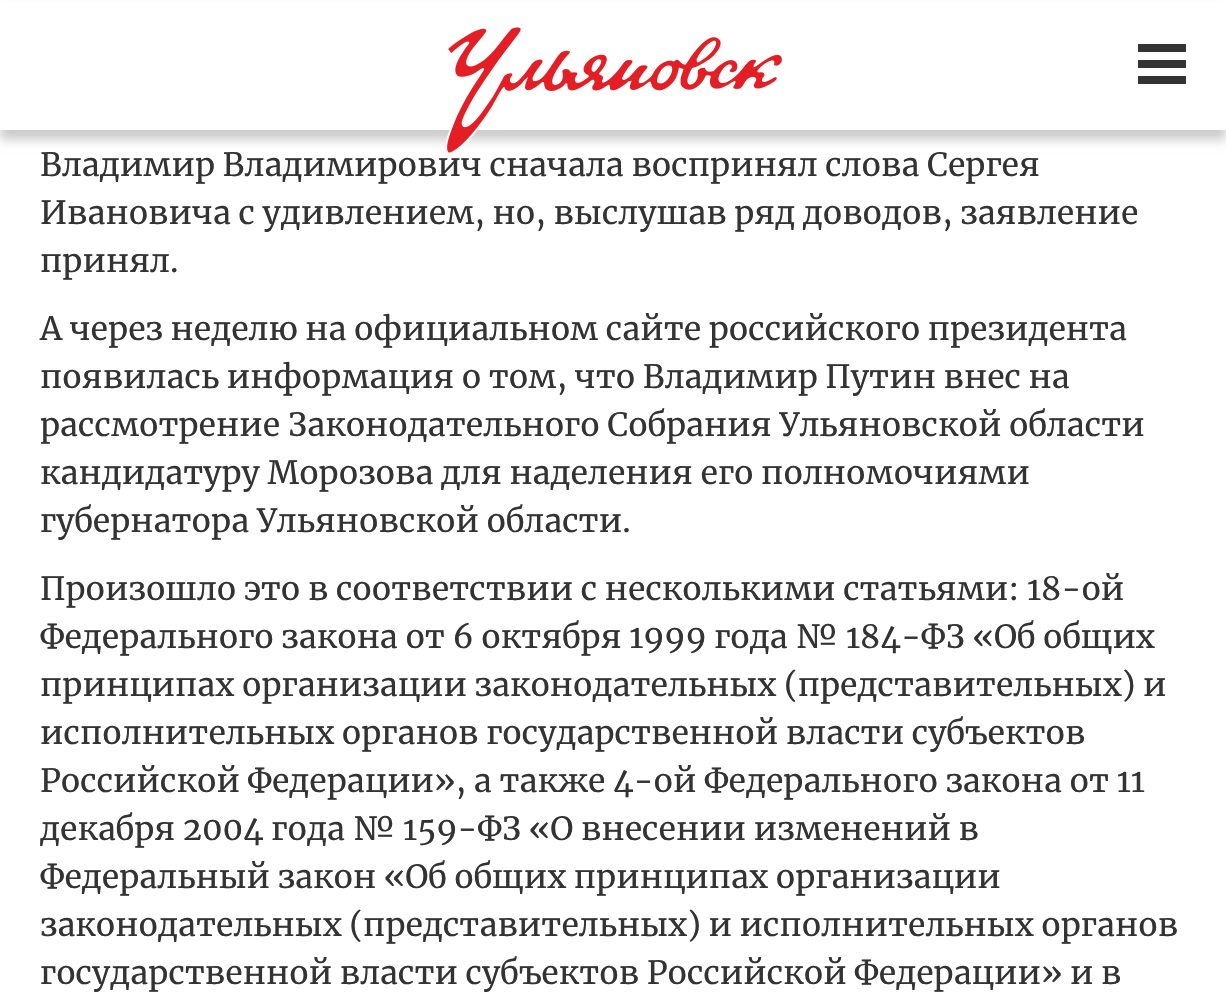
void draw(SkCanvas* canvas) {
  SkPaint paint;
  paint.setAntiAlias(true);
  auto face = [&](const char* family, int weight, float size, bool italic = false) {
    SkFontStyle style(weight, SkFontStyle::kNormal_Width,
      italic ? SkFontStyle::kItalic_Slant : SkFontStyle::kUpright_Slant);
    SkFont result(fontMgr->matchFamilyStyle(family, style), size);
    result.setSubpixel(true);
    return result;
  };
  auto paste = [&](const char* path, float x, float y, float w, float h) {
    auto image = SkImages::DeferredFromEncodedData(SkData::MakeFromFileName(path));
    canvas->drawImageRect(image, SkRect::MakeXYWH(x, y, w, h), SkSamplingOptions());
  };
  canvas->clear(0xffffffff);
  paint.setColor(0x33000000);
  paint.setMaskFilter(SkMaskFilter::MakeBlur(kNormal_SkBlurStyle, 5));
  canvas->drawRect(SkRect::MakeXYWH(0, 10, 1226, 130), paint);
  paint.setMaskFilter(nullptr);
  {
    const struct { float x, y, w, h; SkColor color; } items[] = {
      {0, 2, 1226, 128, 0xffffffff},
      {1138, 44, 48, 8, 0xff333333},
      {1138, 60, 48, 8, 0xff333333},
      {1138, 76, 48, 8, 0xff333333},
    };
    for (auto [x, y, w, h, color] : items) {
      paint.setColor(color);
      canvas->drawRect(SkRect::MakeXYWH(x, y, w, h), paint);
    }
  }
  auto f0 = face("Merriweather", 400, 32);
  canvas->drawString("Владимир Владимирович сначала воспринял слова Сергея", 40, 176, f0, paint);
  paste("img/1.png", 445, 27, 337, 126);
  {
    const struct { const char* s; float x, y; } items[] = {
      {"Ивановича с удивлением, но, выслушав ряд доводов, заявление", 40, 224},
      {"принял.", 40, 272},
      {"А через неделю на официальном сайте российского президента", 40, 340},
      {"появилась информация о том, что Владимир Путин внес на", 40, 388},
      {"рассмотрение Законодательного Собрания Ульяновской области", 40, 436},
      {"кандидатуру Морозова для наделения его полномочиями", 40, 484},
      {"губернатора Ульяновской области.", 40, 532},
      {"Произошло это в соответствии с несколькими статьями: 18-ой", 40, 600},
      {"Федерального закона от 6 октября 1999 года № 184-ФЗ «Об общих", 40, 648},
      {"принципах организации законодательных (представительных) и", 40, 696},
      {"исполнительных органов государственной власти субъектов", 40, 744},
      {"Российской Федерации», а также 4-ой Федерального закона от 11", 40, 792},
      {"декабря 2004 года № 159-ФЗ «О внесении изменений в", 40, 840},
      {"Федеральный закон «Об общих принципах организации", 40, 888},
      {"законодательных (представительных) и исполнительных органов", 40, 936},
      {"государственной власти субъектов Российской Федерации» и в", 40, 984},
    };
    for (auto [s, x, y] : items) {
      canvas->drawString(s, x, y, f0, paint);
    }
  }
}
